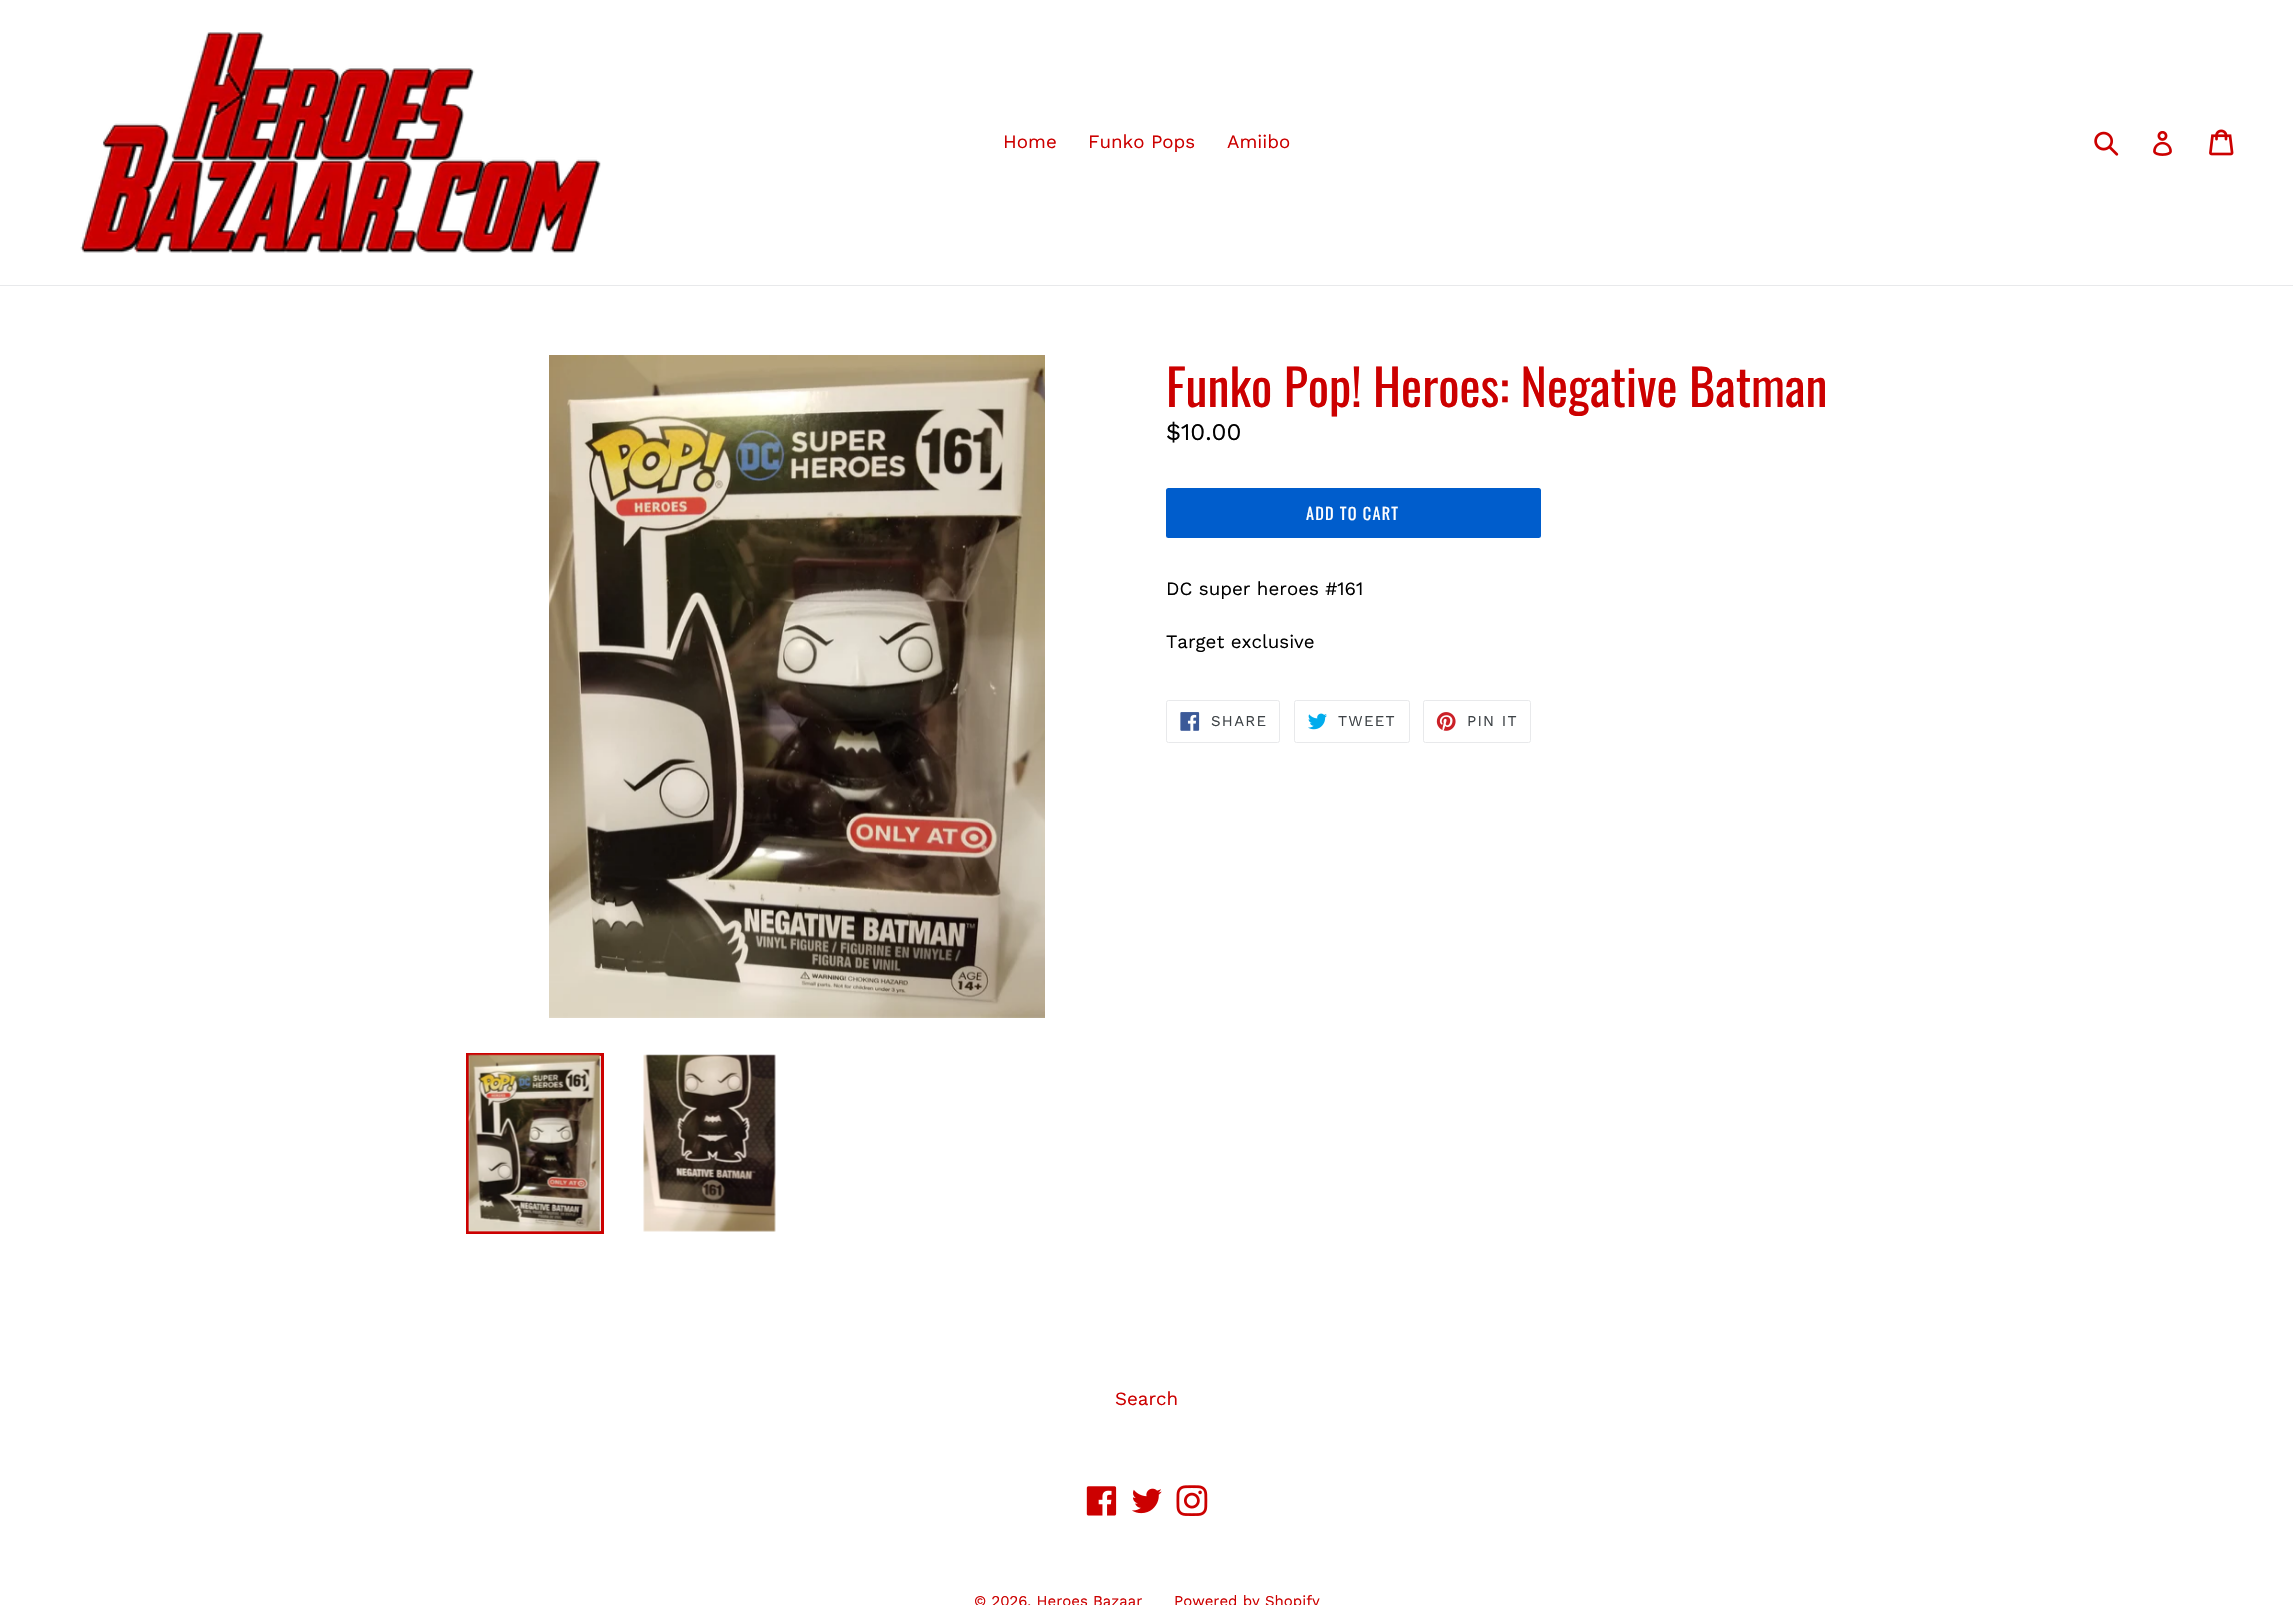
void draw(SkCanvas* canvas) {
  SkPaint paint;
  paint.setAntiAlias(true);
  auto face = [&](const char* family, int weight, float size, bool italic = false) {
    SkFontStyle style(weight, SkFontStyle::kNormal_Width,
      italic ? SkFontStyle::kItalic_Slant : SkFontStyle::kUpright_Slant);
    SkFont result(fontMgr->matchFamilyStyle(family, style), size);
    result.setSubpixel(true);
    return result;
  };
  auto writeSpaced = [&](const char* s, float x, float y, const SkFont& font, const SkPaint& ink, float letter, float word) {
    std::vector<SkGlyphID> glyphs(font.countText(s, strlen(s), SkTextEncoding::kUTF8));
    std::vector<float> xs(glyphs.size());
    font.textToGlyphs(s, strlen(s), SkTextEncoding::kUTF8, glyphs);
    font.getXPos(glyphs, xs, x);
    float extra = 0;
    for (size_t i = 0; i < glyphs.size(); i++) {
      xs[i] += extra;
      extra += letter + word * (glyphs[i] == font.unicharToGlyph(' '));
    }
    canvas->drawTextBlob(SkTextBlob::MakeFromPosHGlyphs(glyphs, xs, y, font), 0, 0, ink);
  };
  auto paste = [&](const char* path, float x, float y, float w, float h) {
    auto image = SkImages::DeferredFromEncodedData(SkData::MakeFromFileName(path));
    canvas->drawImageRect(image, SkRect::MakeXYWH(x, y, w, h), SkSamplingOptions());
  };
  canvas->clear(0xffffffff);
  paint.setColor(0xffe8e9eb);
  canvas->drawRect(SkRect::MakeXYWH(0, 285, 2293, 1), paint);
  paste("img/1.png", 80, 32, 521, 221);
  paste("img/2.png", 2094, 131, 25, 25);
  paste("img/3.png", 2153, 131, 19, 25);
  paste("img/4.png", 2209, 129, 25, 27);
  paste("img/5.png", 549, 355, 496, 663);
  paint.setStroke(true);
  paint.setStrokeWidth(3);
  paint.setColor(0xffcc0000);
  canvas->drawRect(SkRect::MakeXYWH(467.5f, 1054.5f, 135, 178), paint);
  paste("img/6.png", 468, 1054, 133, 178);
  paste("img/7.png", 643, 1054, 133, 178);
  paint.setStroke(false);
  paint.setColor(0xff005dcc);
  canvas->drawRoundRect(SkRect::MakeXYWH(1166, 488, 375, 50), 2.5f, 2.5f, paint);
  paint.setStroke(true);
  paint.setStrokeWidth(1);
  paint.setColor(0xffe8e9eb);
  canvas->drawRoundRect(SkRect::MakeXYWH(1166.5f, 700.5f, 113, 42), 2, 2, paint);
  paste("img/8.png", 1180, 712, 20, 19);
  canvas->drawRoundRect(SkRect::MakeXYWH(1294.5f, 700.5f, 115, 42), 2, 2, paint);
  paste("img/9.png", 1308, 713, 19, 17);
  canvas->drawRoundRect(SkRect::MakeXYWH(1423.5f, 700.5f, 107, 42), 2, 2, paint);
  paste("img/10.png", 1436, 712, 20, 19);
  paste("img/11.png", 1086, 1486, 31, 30);
  paste("img/12.png", 1132, 1488, 30, 26);
  paste("img/13.png", 1176, 1485, 32, 31);
  auto f0 = face("Work Sans", 400, 18.75f);
  paint.setStroke(false);
  paint.setColor(0xffcc0000);
  {
    const struct { const char* s; float x, y; } items[] = {
      {"Home", 1003, 148},
      {"Funko Pops", 1088, 148},
      {"Amiibo", 1227, 148},
    };
    for (auto [s, x, y] : items) {
      canvas->drawString(s, x, y, f0, paint);
    }
  }
  auto f1 = face("Oswald", 400, 50);
  canvas->drawString("Funko Pop! Heroes: Negative Batman", 1166, 407, f1, paint);
  auto f2 = face("Work Sans", 400, 24);
  paint.setColor(0xff000000);
  canvas->drawString("$10.00", 1166, 440, f2, paint);
  auto f3 = face("Oswald", 400, 16.25f);
  paint.setColor(0xffffffff);
  writeSpaced("ADD TO CART", 1306, 520, f3, paint, 1.25f, 0);
  paint.setColor(0xff000000);
  canvas->drawString("DC super heroes #161", 1166, 595, f0, paint);
  canvas->drawString("Target exclusive", 1166, 648, f0, paint);
  auto f4 = face("Work Sans", 400, 15);
  paint.setColor(0xff3d4246);
  {
    const struct { const char* s; float x, y; } items[] = {
      {"SHARE", 1211, 726},
      {"TWEET", 1338, 726},
      {"PIN IT", 1467, 726},
    };
    for (auto [s, x, y] : items) {
      writeSpaced(s, x, y, f4, paint, 1.25f, 0);
    }
  }
  paint.setColor(0xffcc0000);
  canvas->drawString("Search", 1115, 1405, f0, paint);
  canvas->drawString("© 2026, Heroes Bazaar", 974, 1606, f4, paint);
  canvas->drawString("Powered by Shopify", 1174, 1606, f4, paint);
}
